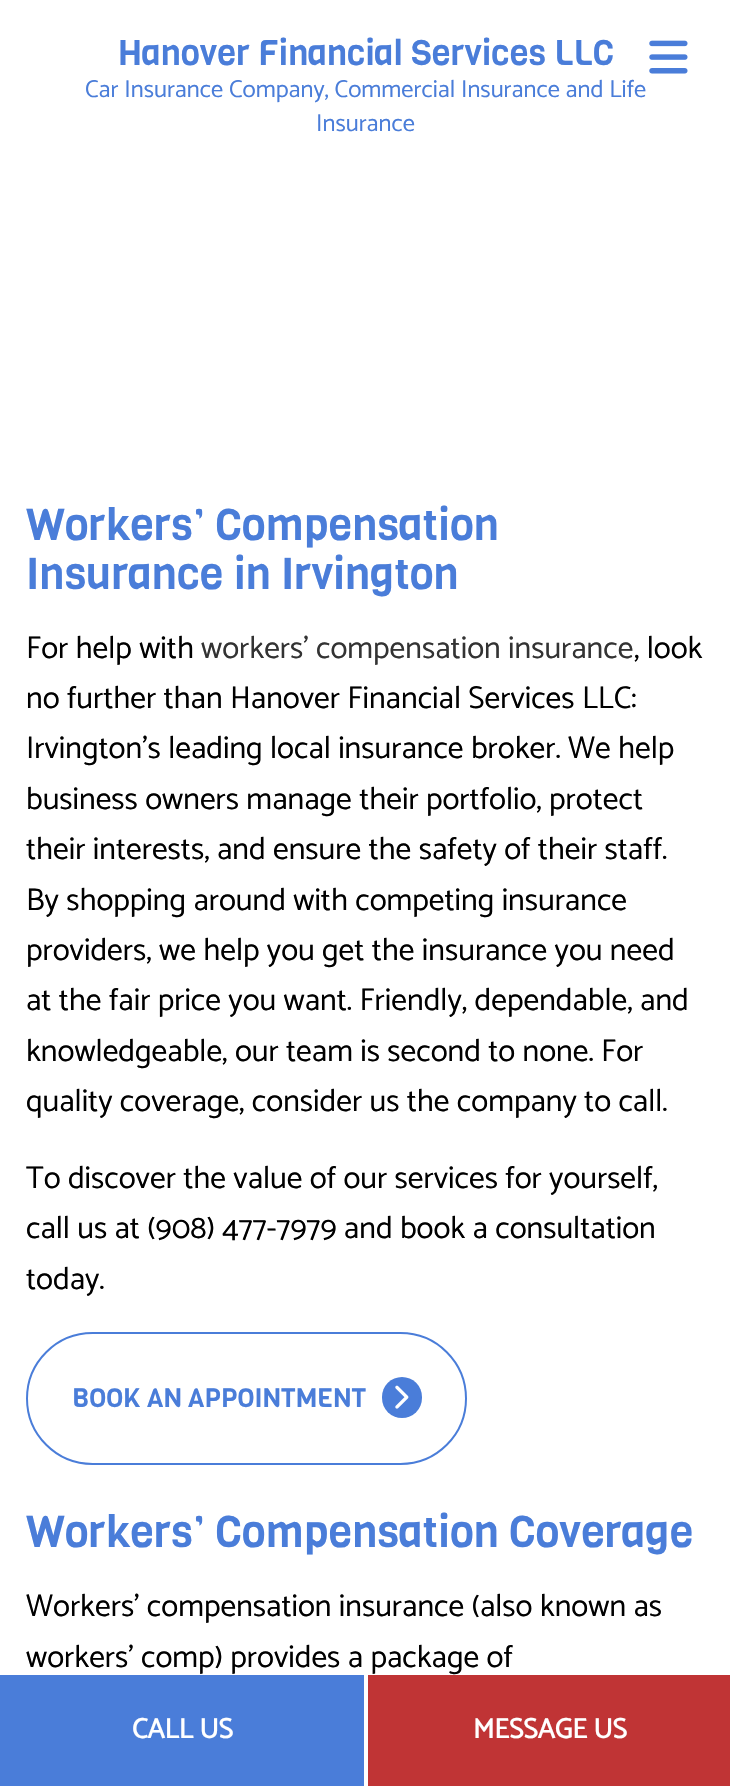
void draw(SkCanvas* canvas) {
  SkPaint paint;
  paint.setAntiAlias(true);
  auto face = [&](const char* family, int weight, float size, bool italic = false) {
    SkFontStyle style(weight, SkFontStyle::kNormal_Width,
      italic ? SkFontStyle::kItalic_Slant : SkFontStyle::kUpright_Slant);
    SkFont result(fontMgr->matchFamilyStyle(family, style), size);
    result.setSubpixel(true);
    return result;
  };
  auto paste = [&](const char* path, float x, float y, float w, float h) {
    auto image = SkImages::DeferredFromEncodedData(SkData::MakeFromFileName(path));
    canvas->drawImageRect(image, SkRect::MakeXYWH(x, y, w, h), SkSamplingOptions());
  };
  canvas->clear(0xffffffff);
  paste("img/1.png", 649, 40, 39, 34);
  paint.setStroke(true);
  paint.setStrokeWidth(2);
  paint.setColor(0xff4a7dd9);
  canvas->drawRoundRect(SkRect::MakeXYWH(27, 1333, 439, 131), 65.5f, 65.5f, paint);
  paint.setStroke(false);
  canvas->drawRoundRect(SkRect::MakeXYWH(382, 1377, 40, 41), 20, 20, paint);
  paste("img/2.png", 395, 1385, 14, 24);
  canvas->drawRect(SkRect::MakeXYWH(0, 1675, 364, 111), paint);
  paint.setColor(0xffc03435);
  canvas->drawRect(SkRect::MakeXYWH(368, 1675, 362, 111), paint);
  auto f0 = face("Viga", 400, 35);
  paint.setColor(0xff4a7dd9);
  canvas->drawString("Hanover Financial Services LLC", 118, 65, f0, paint);
  auto f1 = face("Catamaran", 100, 24.5f);
  canvas->drawString("Car Insurance Company, Commercial Insurance and Life", 85, 97, f1, paint);
  canvas->drawString("Insurance", 316, 131, f1, paint);
  auto f2 = face("Viga", 400, 43.75f);
  canvas->drawString("Workers’ Compensation", 26, 540, f2, paint);
  canvas->drawString("Insurance in Irvington", 26, 589, f2, paint);
  auto f3 = face("Catamaran", 100, 31.5f);
  paint.setColor(0xff000000);
  canvas->drawString("For help with", 26, 658, f3, paint);
  paint.setColor(0xff333333);
  canvas->drawString("workers’ compensation insurance", 201, 658, f3, paint);
  paint.setColor(0xff000000);
  {
    const struct { const char* s; float x, y; } items[] = {
      {", look", 634, 658},
      {"no further than Hanover Financial Services LLC:", 26, 708},
      {"Irvington’s leading local insurance broker. We help", 26, 758},
      {"business owners manage their portfolio, protect", 26, 809},
      {"their interests, and ensure the safety of their staff.", 26, 859},
      {"By shopping around with competing insurance", 26, 910},
      {"providers, we help you get the insurance you need", 26, 960},
      {"at the fair price you want. Friendly, dependable, and", 26, 1010},
      {"knowledgeable, our team is second to none. For", 26, 1061},
      {"quality coverage, consider us the company to call.", 26, 1111},
      {"To discover the value of our services for yourself,", 26, 1188},
      {"call us at (908) 477-7979 and book a consultation", 26, 1238},
      {"today.", 26, 1289},
    };
    for (auto [s, x, y] : items) {
      canvas->drawString(s, x, y, f3, paint);
    }
  }
  auto f4 = face("Viga", 400, 26.25f);
  paint.setColor(0xff4a7dd9);
  canvas->drawString("BOOK AN APPOINTMENT", 72, 1407, f4, paint);
  canvas->drawString("Workers’ Compensation Coverage", 26, 1547, f2, paint);
  paint.setColor(0xff000000);
  canvas->drawString("Workers’ compensation insurance (also known as", 26, 1616, f3, paint);
  canvas->drawString("workers’ comp) provides a package of", 26, 1667, f3, paint);
  auto f5 = face("Catamaran", 700, 28);
  paint.setColor(0xffffffff);
  canvas->drawString("CALL US", 132, 1738, f5, paint);
  canvas->drawString("MESSAGE US", 473, 1738, f5, paint);
}
